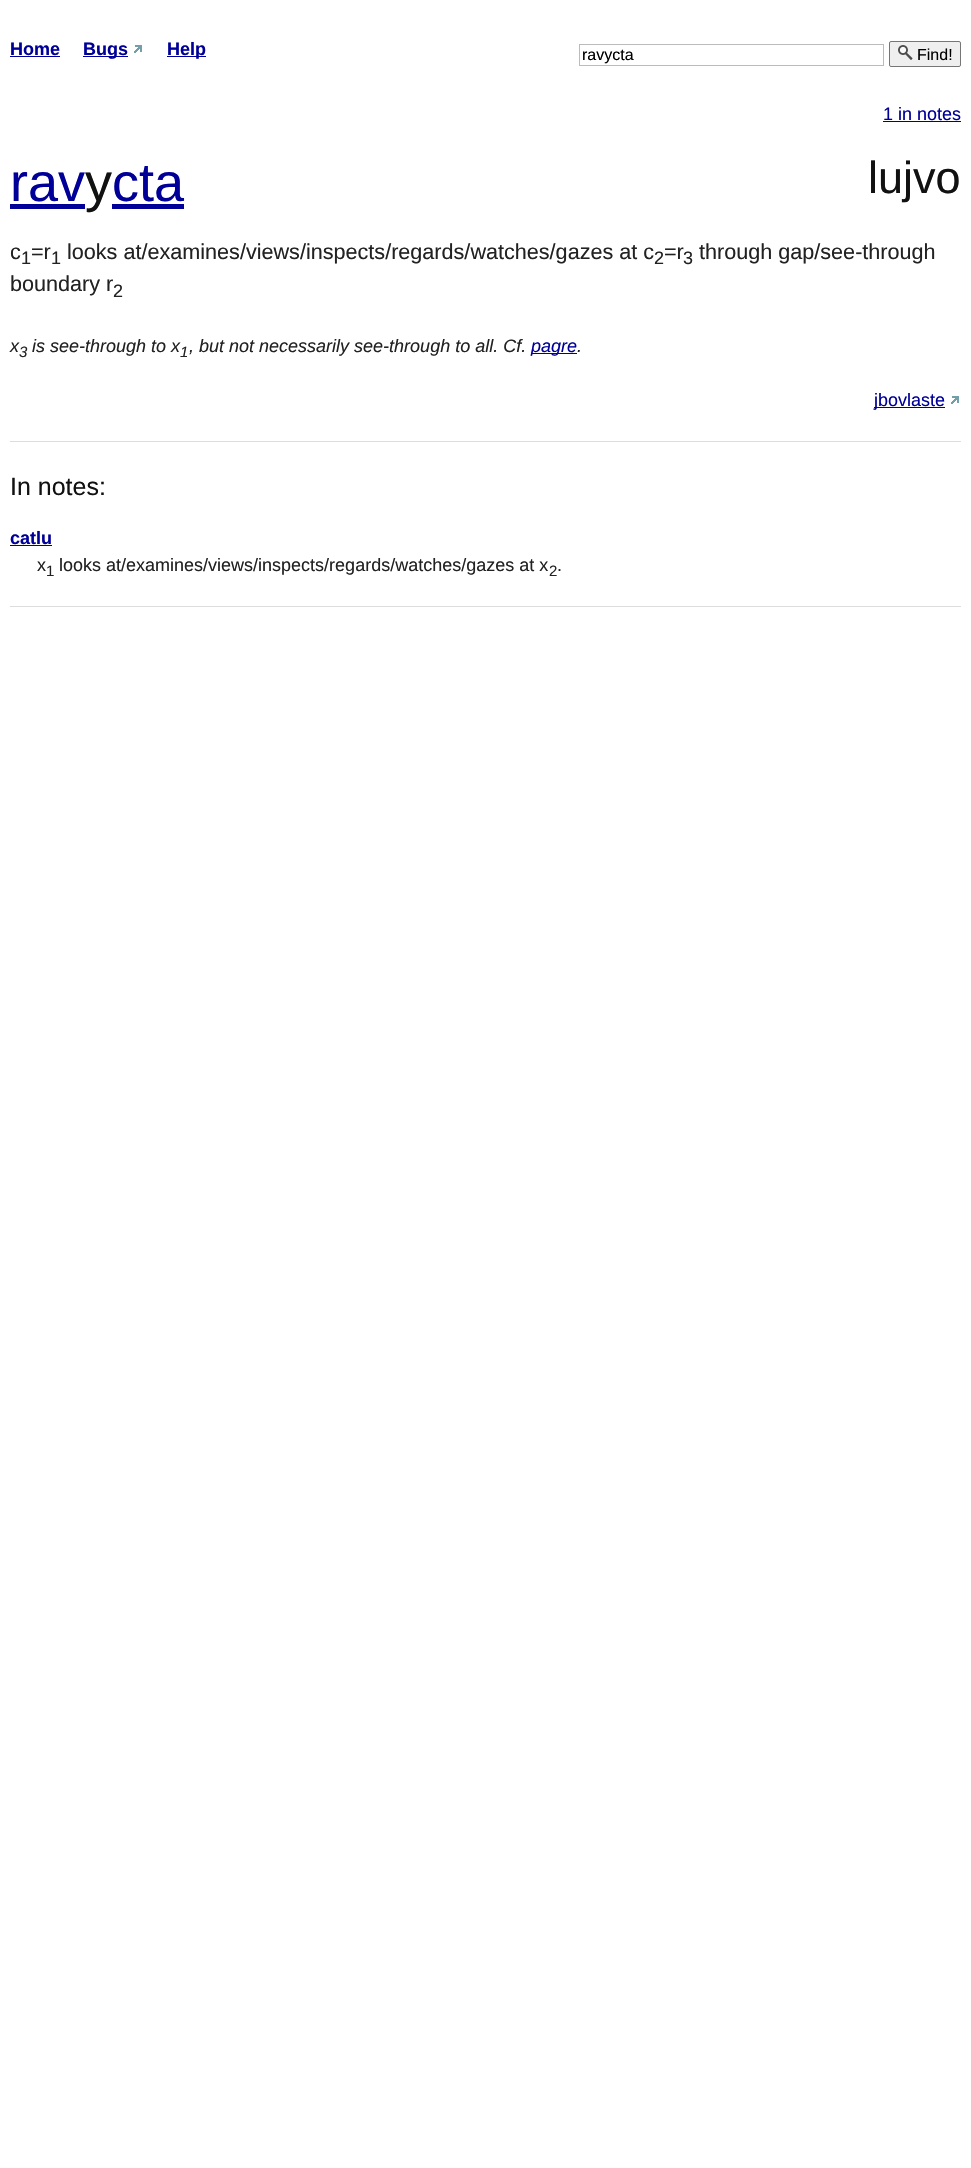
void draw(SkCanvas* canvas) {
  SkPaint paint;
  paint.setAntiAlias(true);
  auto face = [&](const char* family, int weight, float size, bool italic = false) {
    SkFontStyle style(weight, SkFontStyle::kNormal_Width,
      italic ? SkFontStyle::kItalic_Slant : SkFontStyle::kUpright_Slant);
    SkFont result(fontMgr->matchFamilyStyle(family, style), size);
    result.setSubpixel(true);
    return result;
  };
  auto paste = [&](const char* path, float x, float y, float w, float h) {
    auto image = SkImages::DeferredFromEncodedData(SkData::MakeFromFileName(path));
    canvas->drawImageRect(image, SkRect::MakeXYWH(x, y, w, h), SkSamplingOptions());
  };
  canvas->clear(0xffffffff);
  paint.setColor(0xff000099);
  canvas->drawRect(SkRect::MakeXYWH(10, 56, 50, 1), paint);
  canvas->drawRect(SkRect::MakeXYWH(83, 56, 45, 1), paint);
  paste("img/1.png", 134, 45, 8, 8);
  canvas->drawRect(SkRect::MakeXYWH(167, 56, 39, 1), paint);
  paint.setStroke(true);
  paint.setStrokeWidth(1);
  paint.setColor(0xffbbbbbb);
  canvas->drawRect(SkRect::MakeXYWH(579.5f, 44.5f, 304, 21), paint);
  paint.setStroke(false);
  paint.setColor(0xffefefef);
  canvas->drawRoundRect(SkRect::MakeXYWH(889.5f, 41.5f, 71, 25), 1.5f, 1.5f, paint);
  paint.setStroke(true);
  paint.setColor(0xff767676);
  canvas->drawRoundRect(SkRect::MakeXYWH(889.5f, 41.5f, 71, 25), 1.5f, 1.5f, paint);
  paste("img/2.png", 898, 45, 15, 15);
  paint.setStroke(false);
  {
    const struct { float x, y, w, h; SkColor color; } items[] = {
      {883, 121, 78, 1, 0xff000099},
      {10, 204, 75, 5, 0xff000099},
      {112, 204, 72, 5, 0xff000099},
      {531, 353, 46, 1, 0xff000099},
      {874, 407, 71, 1, 0xff000099},
    };
    for (auto [x, y, w, h, color] : items) {
      paint.setColor(color);
      canvas->drawRect(SkRect::MakeXYWH(x, y, w, h), paint);
    }
  }
  paste("img/1.png", 951, 396, 8, 8);
  {
    const struct { float x, y, w, h; SkColor color; } items[] = {
      {10, 441, 951, 1, 0xffdddddd},
      {10, 545, 42, 1, 0xff000099},
      {10, 606, 951, 1, 0xffdddddd},
    };
    for (auto [x, y, w, h, color] : items) {
      paint.setColor(color);
      canvas->drawRect(SkRect::MakeXYWH(x, y, w, h), paint);
    }
  }
  auto f0 = face("Liberation Sans", 700, 18);
  paint.setColor(0xff000099);
  {
    const struct { const char* s; float x, y; } items[] = {
      {"Home", 10, 55},
      {"Bugs", 83, 55},
      {"Help", 167, 55},
    };
    for (auto [s, x, y] : items) {
      canvas->drawString(s, x, y, f0, paint);
    }
  }
  auto f1 = face("Liberation Sans", 400, 16);
  paint.setColor(0xff000000);
  canvas->drawString("ravycta", 582, 60, f1, paint);
  canvas->drawString("Find!", 917, 60, f1, paint);
  auto f2 = face("Liberation Sans", 400, 18);
  paint.setColor(0xff000099);
  canvas->drawString("1 in notes", 883, 120, f2, paint);
  auto f3 = face("Liberation Sans", 400, 54);
  canvas->drawString("rav", 10, 201, f3, paint);
  paint.setColor(0xff111111);
  canvas->drawString("y", 85, 201, f3, paint);
  paint.setColor(0xff000099);
  canvas->drawString("cta", 112, 201, f3, paint);
  auto f4 = face("Liberation Sans", 400, 45);
  paint.setColor(0xff111111);
  canvas->drawString("lujvo", 868, 193, f4, paint);
  auto f5 = face("Liberation Sans", 400, 21.6f);
  paint.setColor(0xff222222);
  canvas->drawString("c", 10, 259, f5, paint);
  canvas->drawString("1", 21, 264, f2, paint);
  canvas->drawString("=r", 31, 259, f5, paint);
  canvas->drawString("1", 51, 264, f2, paint);
  canvas->drawString("looks at/examines/views/inspects/regards/watches/gazes at c", 67, 259, f5, paint);
  canvas->drawString("2", 654, 264, f2, paint);
  canvas->drawString("=r", 664, 259, f5, paint);
  canvas->drawString("3", 683, 264, f2, paint);
  canvas->drawString("through gap/see-through", 699, 259, f5, paint);
  canvas->drawString("boundary r", 10, 291, f5, paint);
  canvas->drawString("2", 113, 297, f2, paint);
  auto f6 = face("Liberation Sans", 400, 18, true);
  canvas->drawString("x", 10, 352, f6, paint);
  auto f7 = face("Liberation Sans", 400, 15, true);
  canvas->drawString("3", 19, 357, f7, paint);
  canvas->drawString("is see-through to x", 32, 352, f6, paint);
  canvas->drawString("1", 180, 357, f7, paint);
  canvas->drawString(", but not necessarily see-through to all. Cf.", 189, 352, f6, paint);
  paint.setColor(0xff000099);
  canvas->drawString("pagre", 531, 352, f6, paint);
  paint.setColor(0xff222222);
  canvas->drawString(".", 577, 352, f6, paint);
  paint.setColor(0xff000099);
  canvas->drawString("jbovlaste", 874, 406, f2, paint);
  auto f8 = face("Liberation Sans", 400, 25);
  paint.setColor(0xff111111);
  canvas->drawString("In notes:", 10, 495, f8, paint);
  paint.setColor(0xff000099);
  canvas->drawString("catlu", 10, 544, f0, paint);
  paint.setColor(0xff222222);
  canvas->drawString("x", 37, 571, f2, paint);
  auto f9 = face("Liberation Sans", 400, 15);
  canvas->drawString("1", 46, 576, f9, paint);
  canvas->drawString("looks at/examines/views/inspects/regards/watches/gazes at x", 59, 571, f2, paint);
  canvas->drawString("2", 549, 576, f9, paint);
  canvas->drawString(".", 557, 571, f2, paint);
}
